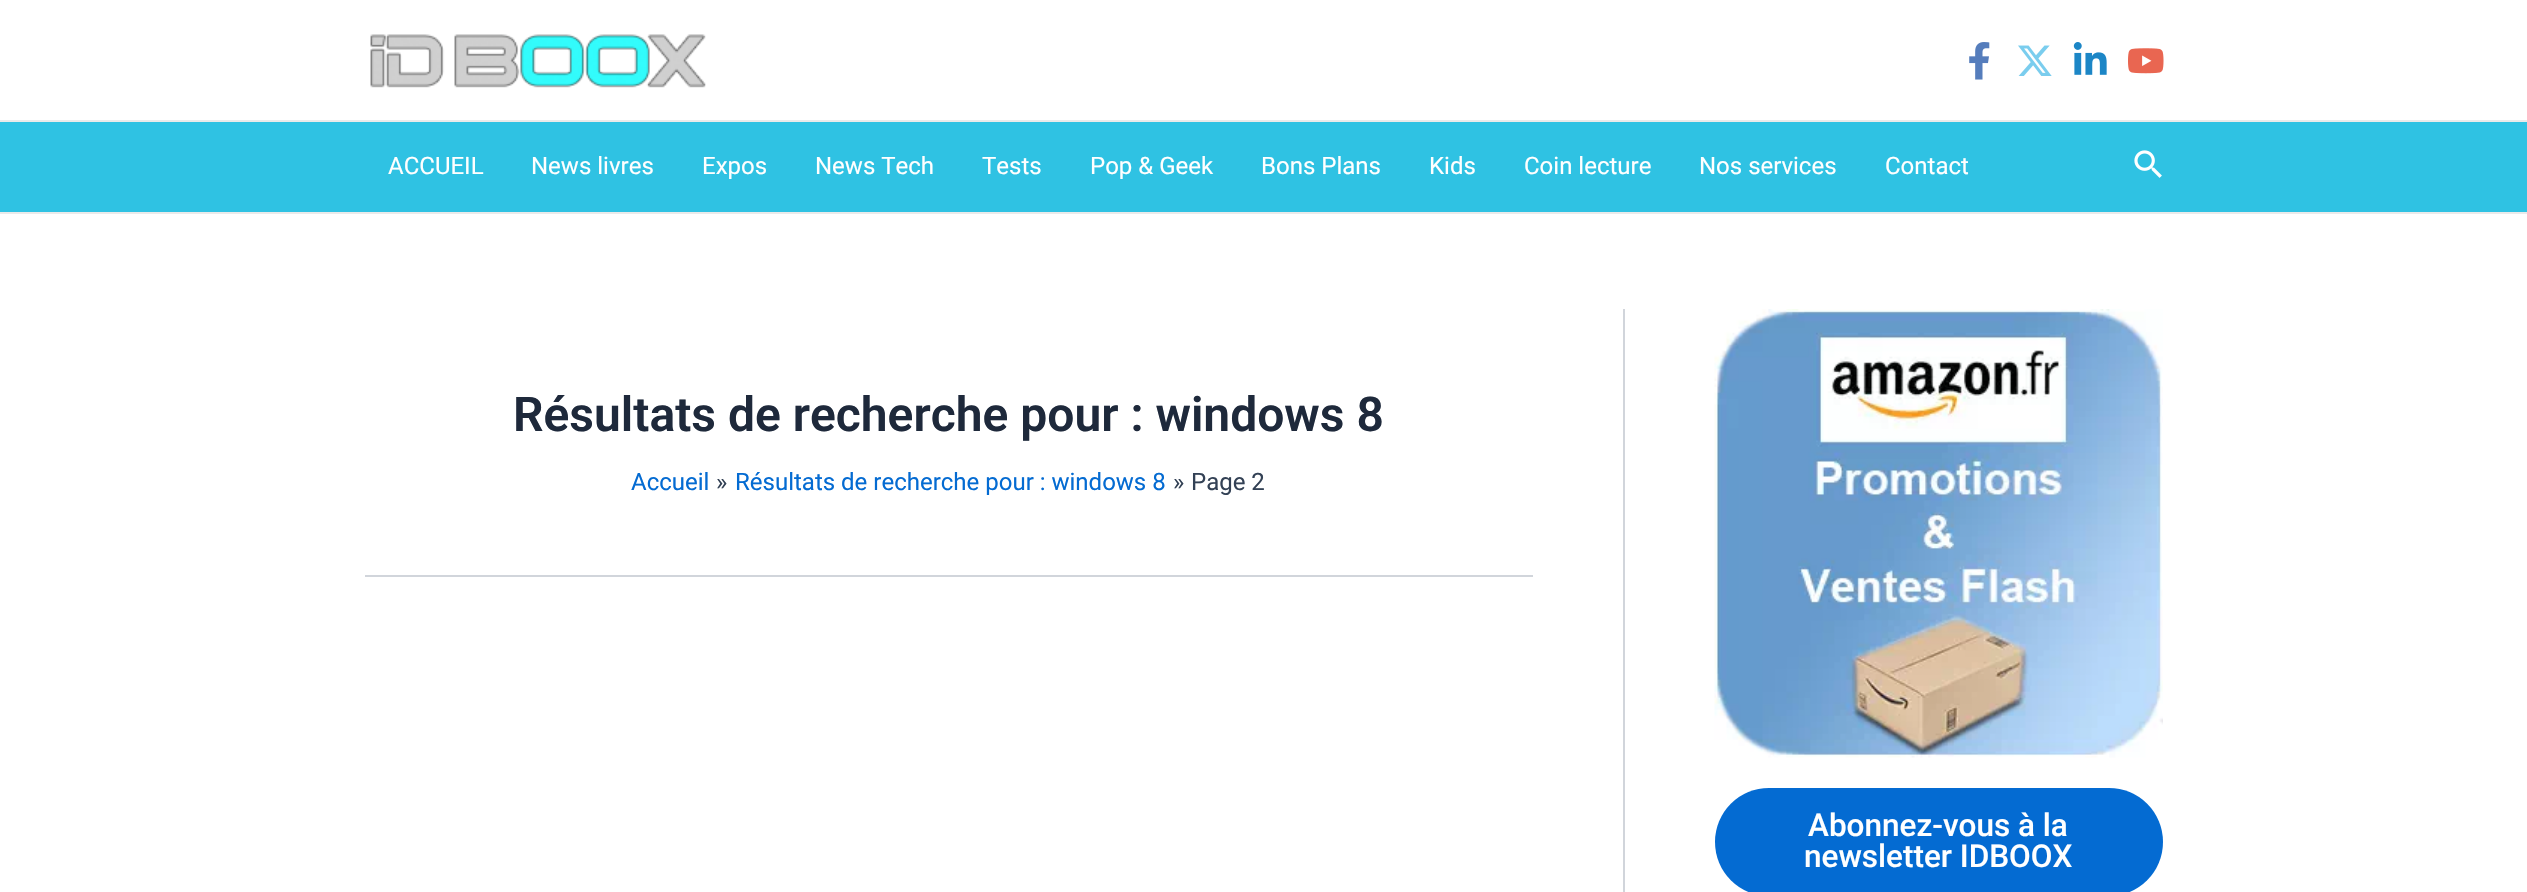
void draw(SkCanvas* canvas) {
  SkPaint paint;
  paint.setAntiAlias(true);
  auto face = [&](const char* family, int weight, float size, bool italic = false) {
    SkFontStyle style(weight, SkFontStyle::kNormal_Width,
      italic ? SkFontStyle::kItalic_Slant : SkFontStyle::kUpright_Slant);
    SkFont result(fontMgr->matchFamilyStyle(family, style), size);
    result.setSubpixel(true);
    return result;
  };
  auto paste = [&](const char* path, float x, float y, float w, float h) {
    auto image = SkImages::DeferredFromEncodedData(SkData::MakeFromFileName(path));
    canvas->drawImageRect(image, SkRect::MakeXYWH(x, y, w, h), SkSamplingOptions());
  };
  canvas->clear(0xffffffff);
  paint.setColor(0xffeaeaea);
  canvas->drawRect(SkRect::MakeXYWH(0, 120, 2527, 2), paint);
  paste("img/1.png", 370, 34, 336, 54);
  paste("img/2.png", 1969, 42, 21, 38);
  paste("img/3.png", 2018, 45, 34, 31);
  paste("img/4.png", 2073, 42, 34, 33);
  paste("img/5.png", 2128, 48, 36, 26);
  paint.setColor(0xff2fc2e3);
  canvas->drawRect(SkRect::MakeXYWH(0, 122, 2527, 90), paint);
  paint.setColor(0xffeaeaea);
  canvas->drawRect(SkRect::MakeXYWH(0, 212, 2527, 2), paint);
  paste("img/6.png", 2134, 150, 28, 28);
  paint.setColor(0xffd1d5db);
  canvas->drawRect(SkRect::MakeXYWH(1623, 309, 2, 583), paint);
  canvas->drawRect(SkRect::MakeXYWH(365, 575, 1168, 2), paint);
  paste("img/7.png", 1714, 309, 449, 449);
  paint.setColor(0xff046bd2);
  canvas->drawRoundRect(SkRect::MakeXYWH(1715, 788, 448, 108), 54, 54, paint);
  auto f0 = face("Roboto", 400, 24);
  paint.setColor(0xffffffff);
  {
    const struct { const char* s; float x, y; } items[] = {
      {"ACCUEIL", 388, 174},
      {"News livres", 531, 174},
      {"Expos", 702, 174},
      {"News Tech", 815, 174},
      {"Tests", 982, 174},
      {"Pop & Geek", 1090, 174},
      {"Bons Plans", 1261, 174},
      {"Kids", 1429, 174},
      {"Coin lecture", 1524, 174},
      {"Nos services", 1699, 174},
      {"Contact", 1885, 174},
    };
    for (auto [s, x, y] : items) {
      canvas->drawString(s, x, y, f0, paint);
    }
  }
  auto f1 = face("Roboto", 600, 48);
  paint.setColor(0xff1e293b);
  canvas->drawString("Résultats de recherche pour : windows 8", 513, 431, f1, paint);
  paint.setColor(0xff046bd2);
  canvas->drawString("Accueil", 631, 490, f0, paint);
  paint.setColor(0xff334155);
  canvas->drawString("»", 716, 490, f0, paint);
  paint.setColor(0xff046bd2);
  canvas->drawString("Résultats de recherche pour : windows 8", 735, 490, f0, paint);
  paint.setColor(0xff334155);
  canvas->drawString("»", 1173, 490, f0, paint);
  canvas->drawString("Page 2", 1191, 490, f0, paint);
  auto f2 = face("Roboto", 500, 31.5f);
  paint.setColor(0xffffffff);
  canvas->drawString("Abonnez-vous à la", 1808, 836, f2, paint);
  canvas->drawString("newsletter IDBOOX", 1804, 867, f2, paint);
}
